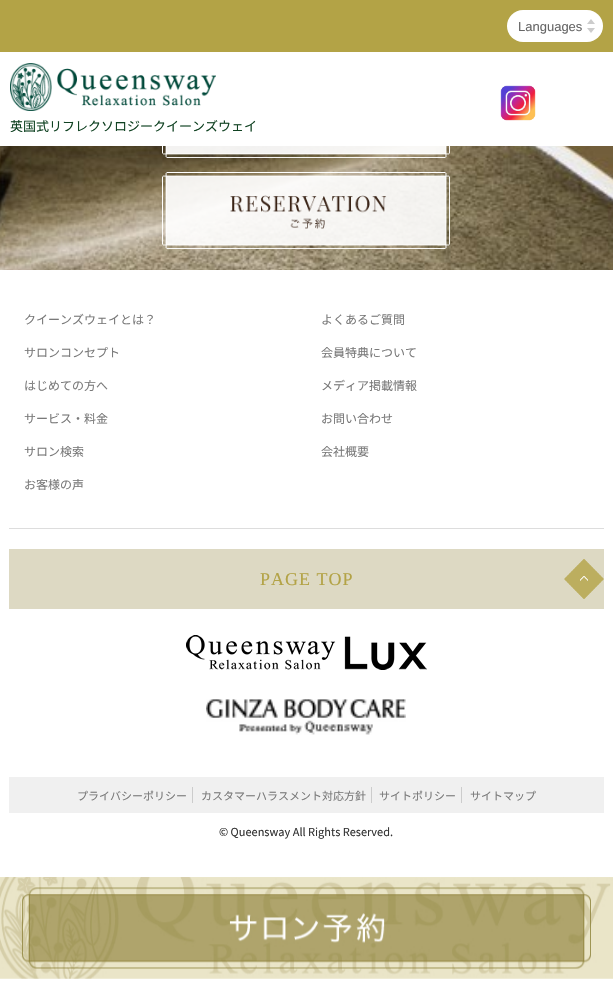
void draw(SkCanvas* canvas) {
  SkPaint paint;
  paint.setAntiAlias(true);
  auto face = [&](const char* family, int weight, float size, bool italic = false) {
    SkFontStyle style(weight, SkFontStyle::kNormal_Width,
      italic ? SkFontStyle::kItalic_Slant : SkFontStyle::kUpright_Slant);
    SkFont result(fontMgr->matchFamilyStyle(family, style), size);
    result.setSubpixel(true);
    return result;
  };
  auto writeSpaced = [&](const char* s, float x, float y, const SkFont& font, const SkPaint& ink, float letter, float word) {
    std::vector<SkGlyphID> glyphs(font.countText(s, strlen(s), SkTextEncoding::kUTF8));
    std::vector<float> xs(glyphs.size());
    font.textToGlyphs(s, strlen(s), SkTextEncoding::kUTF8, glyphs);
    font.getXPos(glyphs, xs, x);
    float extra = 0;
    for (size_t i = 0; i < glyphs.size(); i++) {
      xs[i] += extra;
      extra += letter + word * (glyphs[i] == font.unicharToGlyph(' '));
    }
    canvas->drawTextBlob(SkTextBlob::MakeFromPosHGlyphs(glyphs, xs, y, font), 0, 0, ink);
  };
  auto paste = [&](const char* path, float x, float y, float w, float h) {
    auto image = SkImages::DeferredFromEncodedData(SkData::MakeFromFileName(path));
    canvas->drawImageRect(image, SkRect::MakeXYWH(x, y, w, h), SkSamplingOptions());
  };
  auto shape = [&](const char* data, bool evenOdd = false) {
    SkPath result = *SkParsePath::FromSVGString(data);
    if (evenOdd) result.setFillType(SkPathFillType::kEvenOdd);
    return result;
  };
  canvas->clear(0xffffffff);
  paint.setColor(0xffb3a346);
  canvas->drawRect(SkRect::MakeXYWH(0, 0, 613, 52), paint);
  paint.setColor(0xffffffff);
  canvas->drawRoundRect(SkRect::MakeXYWH(507, 10, 96, 32), 16, 16, paint);
  paint.setColor(0xffcccccc);
  canvas->drawPath(shape("M591 19L587 24H595ZM587 28H595L591 33Z"), paint);
  paste("img/1.png", 500, 85, 36, 36);
  paste("img/2.png", 10, 63, 206, 48);
  paste("img/3.png", 0, 146, 613, 124);
  paste("img/4.png", 162, 146, 288, 12);
  paste("img/5.png", 162, 172, 288, 77);
  paint.setColor(0xffdddddd);
  canvas->drawRect(SkRect::MakeXYWH(9, 528, 595, 1), paint);
  paint.setColor(0xffddd9c3);
  canvas->drawRect(SkRect::MakeXYWH(9, 549, 595, 60), paint);
  paste("img/6.png", 564, 559, 40, 40);
  paste("img/7.png", 186, 635, 241, 35);
  paste("img/8.png", 206, 699, 200, 36);
  {
    const struct { float x, y, w, h; SkColor color; } items[] = {
      {9, 777, 595, 36, 0xfff0f0f0},
      {192, 787, 1, 16, 0xffcccccc},
      {371, 787, 1, 16, 0xffcccccc},
      {461, 787, 1, 16, 0xffcccccc},
    };
    for (auto [x, y, w, h, color] : items) {
      paint.setColor(color);
      canvas->drawRect(SkRect::MakeXYWH(x, y, w, h), paint);
    }
  }
  paste("img/9.png", 0, 877, 613, 102);
  auto f0 = face("Liberation Sans", 400, 13);
  paint.setColor(0xff666666);
  canvas->drawString("Languages", 518, 31, f0, paint);
  auto f1 = face("Noto Sans JP", 400, 13);
  paint.setColor(0xff104222);
  canvas->drawString("英国式リフレクソロジークイーンズウェイ", 10, 131, f1, paint);
  auto f2 = face("Noto Sans JP", 400, 12);
  paint.setColor(0xff797979);
  {
    const struct { const char* s; float x, y; } items[] = {
      {"クイーンズウェイとは？", 24, 324},
      {"サロンコンセプト", 24, 357},
      {"はじめての方へ", 24, 390},
      {"サービス・料金", 24, 423},
      {"サロン検索", 24, 456},
      {"お客様の声", 24, 489},
      {"よくあるご質問", 321, 324},
      {"会員特典について", 321, 357},
      {"メディア掲載情報", 321, 390},
      {"お問い合わせ", 321, 423},
      {"会社概要", 321, 456},
    };
    for (auto [s, x, y] : items) {
      canvas->drawString(s, x, y, f2, paint);
    }
  }
  auto f3 = face("Liberation Serif", 400, 18);
  paint.setColor(0xffb3a346);
  writeSpaced("PAGE TOP", 260, 585, f3, paint, 1, 0);
  auto f4 = face("Noto Sans JP", 400, 11);
  paint.setColor(0xff797979);
  {
    const struct { const char* s; float x, y; } items[] = {
      {"プライバシーポリシー", 77, 800},
      {"カスタマーハラスメント対応方針", 201, 800},
      {"サイトポリシー", 379, 800},
      {"サイトマップ", 470, 800},
    };
    for (auto [s, x, y] : items) {
      canvas->drawString(s, x, y, f4, paint);
    }
  }
  paint.setColor(0xff333333);
  canvas->drawString("© Queensway All Rights Reserved.", 219, 836, f4, paint);
}
